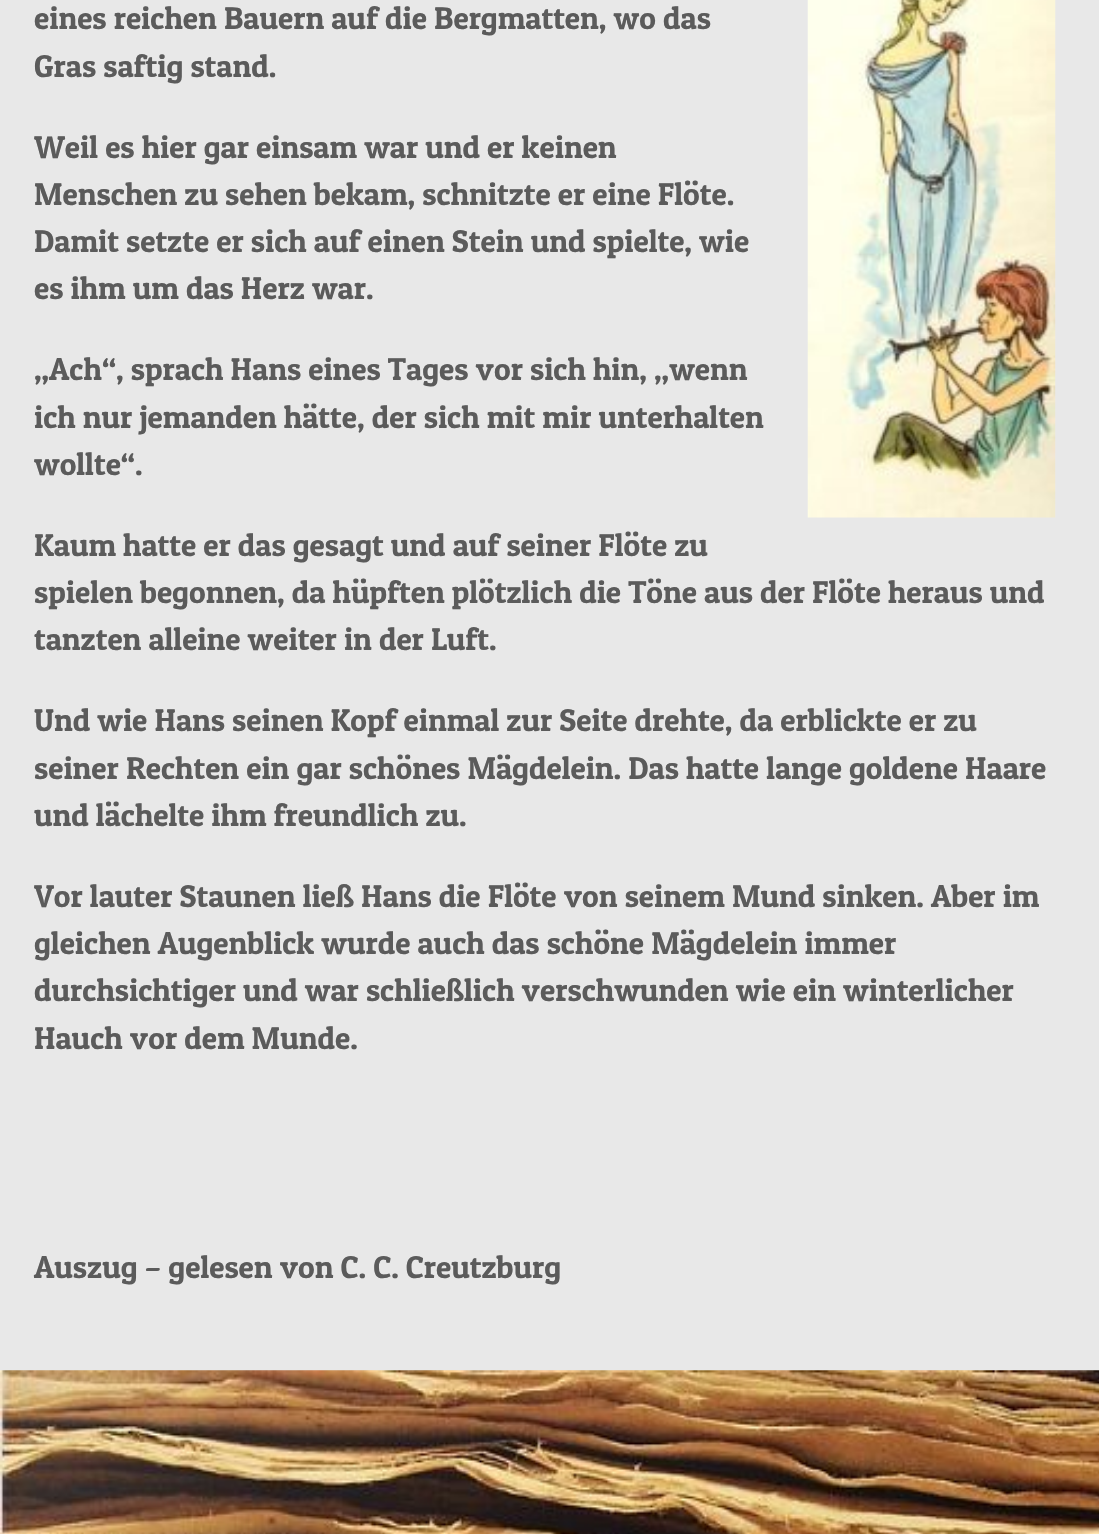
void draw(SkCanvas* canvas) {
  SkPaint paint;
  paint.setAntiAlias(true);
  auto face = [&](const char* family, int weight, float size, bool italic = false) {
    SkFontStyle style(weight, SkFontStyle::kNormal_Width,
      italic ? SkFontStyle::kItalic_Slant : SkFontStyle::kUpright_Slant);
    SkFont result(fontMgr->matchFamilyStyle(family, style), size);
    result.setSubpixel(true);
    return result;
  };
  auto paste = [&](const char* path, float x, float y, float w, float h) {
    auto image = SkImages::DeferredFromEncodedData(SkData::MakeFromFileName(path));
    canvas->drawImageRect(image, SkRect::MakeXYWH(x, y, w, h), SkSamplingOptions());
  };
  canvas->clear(0xffe8e8e8);
  paste("img/1.png", 807, 0, 249, 518);
  paste("img/2.png", 0, 1370, 1099, 164);
  auto f0 = face("Patua One", 400, 31.5f);
  paint.setColor(0xff5b5b5b);
  {
    const struct { const char* s; float x, y; } items[] = {
      {"eines reichen Bauern auf die Bergmatten, wo das", 34, 29},
      {"Gras saftig stand.", 34, 77},
      {"Weil es hier gar einsam war und er keinen", 34, 158},
      {"Menschen zu sehen bekam, schnitzte er eine Flöte.", 34, 205},
      {"Damit setzte er sich auf einen Stein und spielte, wie", 34, 252},
      {"es ihm um das Herz war.", 34, 299},
      {"„Ach“, sprach Hans eines Tages vor sich hin, „wenn", 34, 380},
      {"ich nur jemanden hätte, der sich mit mir unterhalten", 34, 428},
      {"wollte“.", 34, 475},
      {"Kaum hatte er das gesagt und auf seiner Flöte zu", 34, 556},
      {"spielen begonnen, da hüpften plötzlich die Töne aus der Flöte heraus und", 34, 603},
      {"tanzten alleine weiter in der Luft.", 34, 650},
      {"Und wie Hans seinen Kopf einmal zur Seite drehte, da erblickte er zu", 34, 731},
      {"seiner Rechten ein gar schönes Mägdelein. Das hatte lange goldene Haare", 34, 779},
      {"und lächelte ihm freundlich zu.", 34, 826},
      {"Vor lauter Staunen ließ Hans die Flöte von seinem Mund sinken. Aber im", 34, 907},
      {"gleichen Augenblick wurde auch das schöne Mägdelein immer", 34, 954},
      {"durchsichtiger und war schließlich verschwunden wie ein winterlicher", 34, 1001},
      {"Hauch vor dem Munde.", 34, 1049},
      {"Auszug – gelesen von C. C. Creutzburg", 34, 1278},
    };
    for (auto [s, x, y] : items) {
      canvas->drawString(s, x, y, f0, paint);
    }
  }
}
